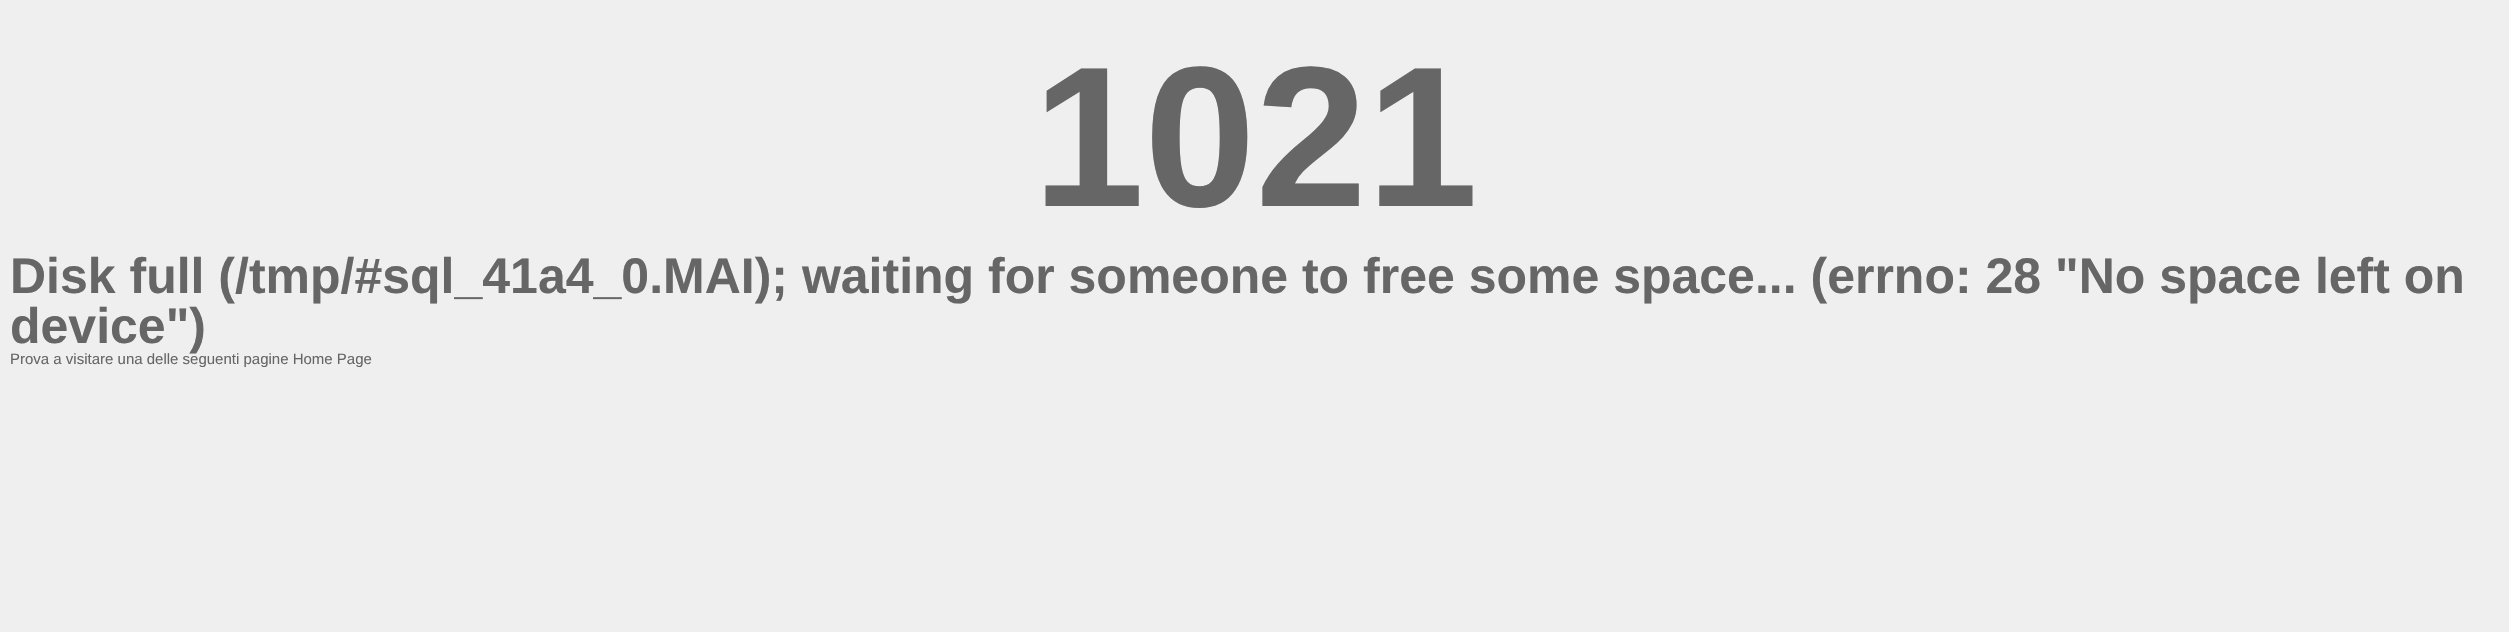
void draw(SkCanvas* canvas) {
  SkPaint paint;
  paint.setAntiAlias(true);
  auto face = [&](const char* family, int weight, float size, bool italic = false) {
    SkFontStyle style(weight, SkFontStyle::kNormal_Width,
      italic ? SkFontStyle::kItalic_Slant : SkFontStyle::kUpright_Slant);
    SkFont result(fontMgr->matchFamilyStyle(family, style), size);
    result.setSubpixel(true);
    return result;
  };
  canvas->clear(0xffefefef);
  auto f0 = face("Liberation Sans", 700, 200);
  paint.setColor(0xff666666);
  canvas->drawString("1021", 1033, 206, f0, paint);
  auto f1 = face("Liberation Sans", 700, 50);
  canvas->drawString("Disk full (/tmp/#sql_41a4_0.MAI); waiting for someone to free some space... (errno: 28 \"No space left on", 10, 293, f1, paint);
  canvas->drawString("device\")", 10, 343, f1, paint);
  auto f2 = face("Liberation Sans", 400, 15);
  canvas->drawString("Prova a visitare una delle seguenti pagine Home Page", 10, 364, f2, paint);
}
